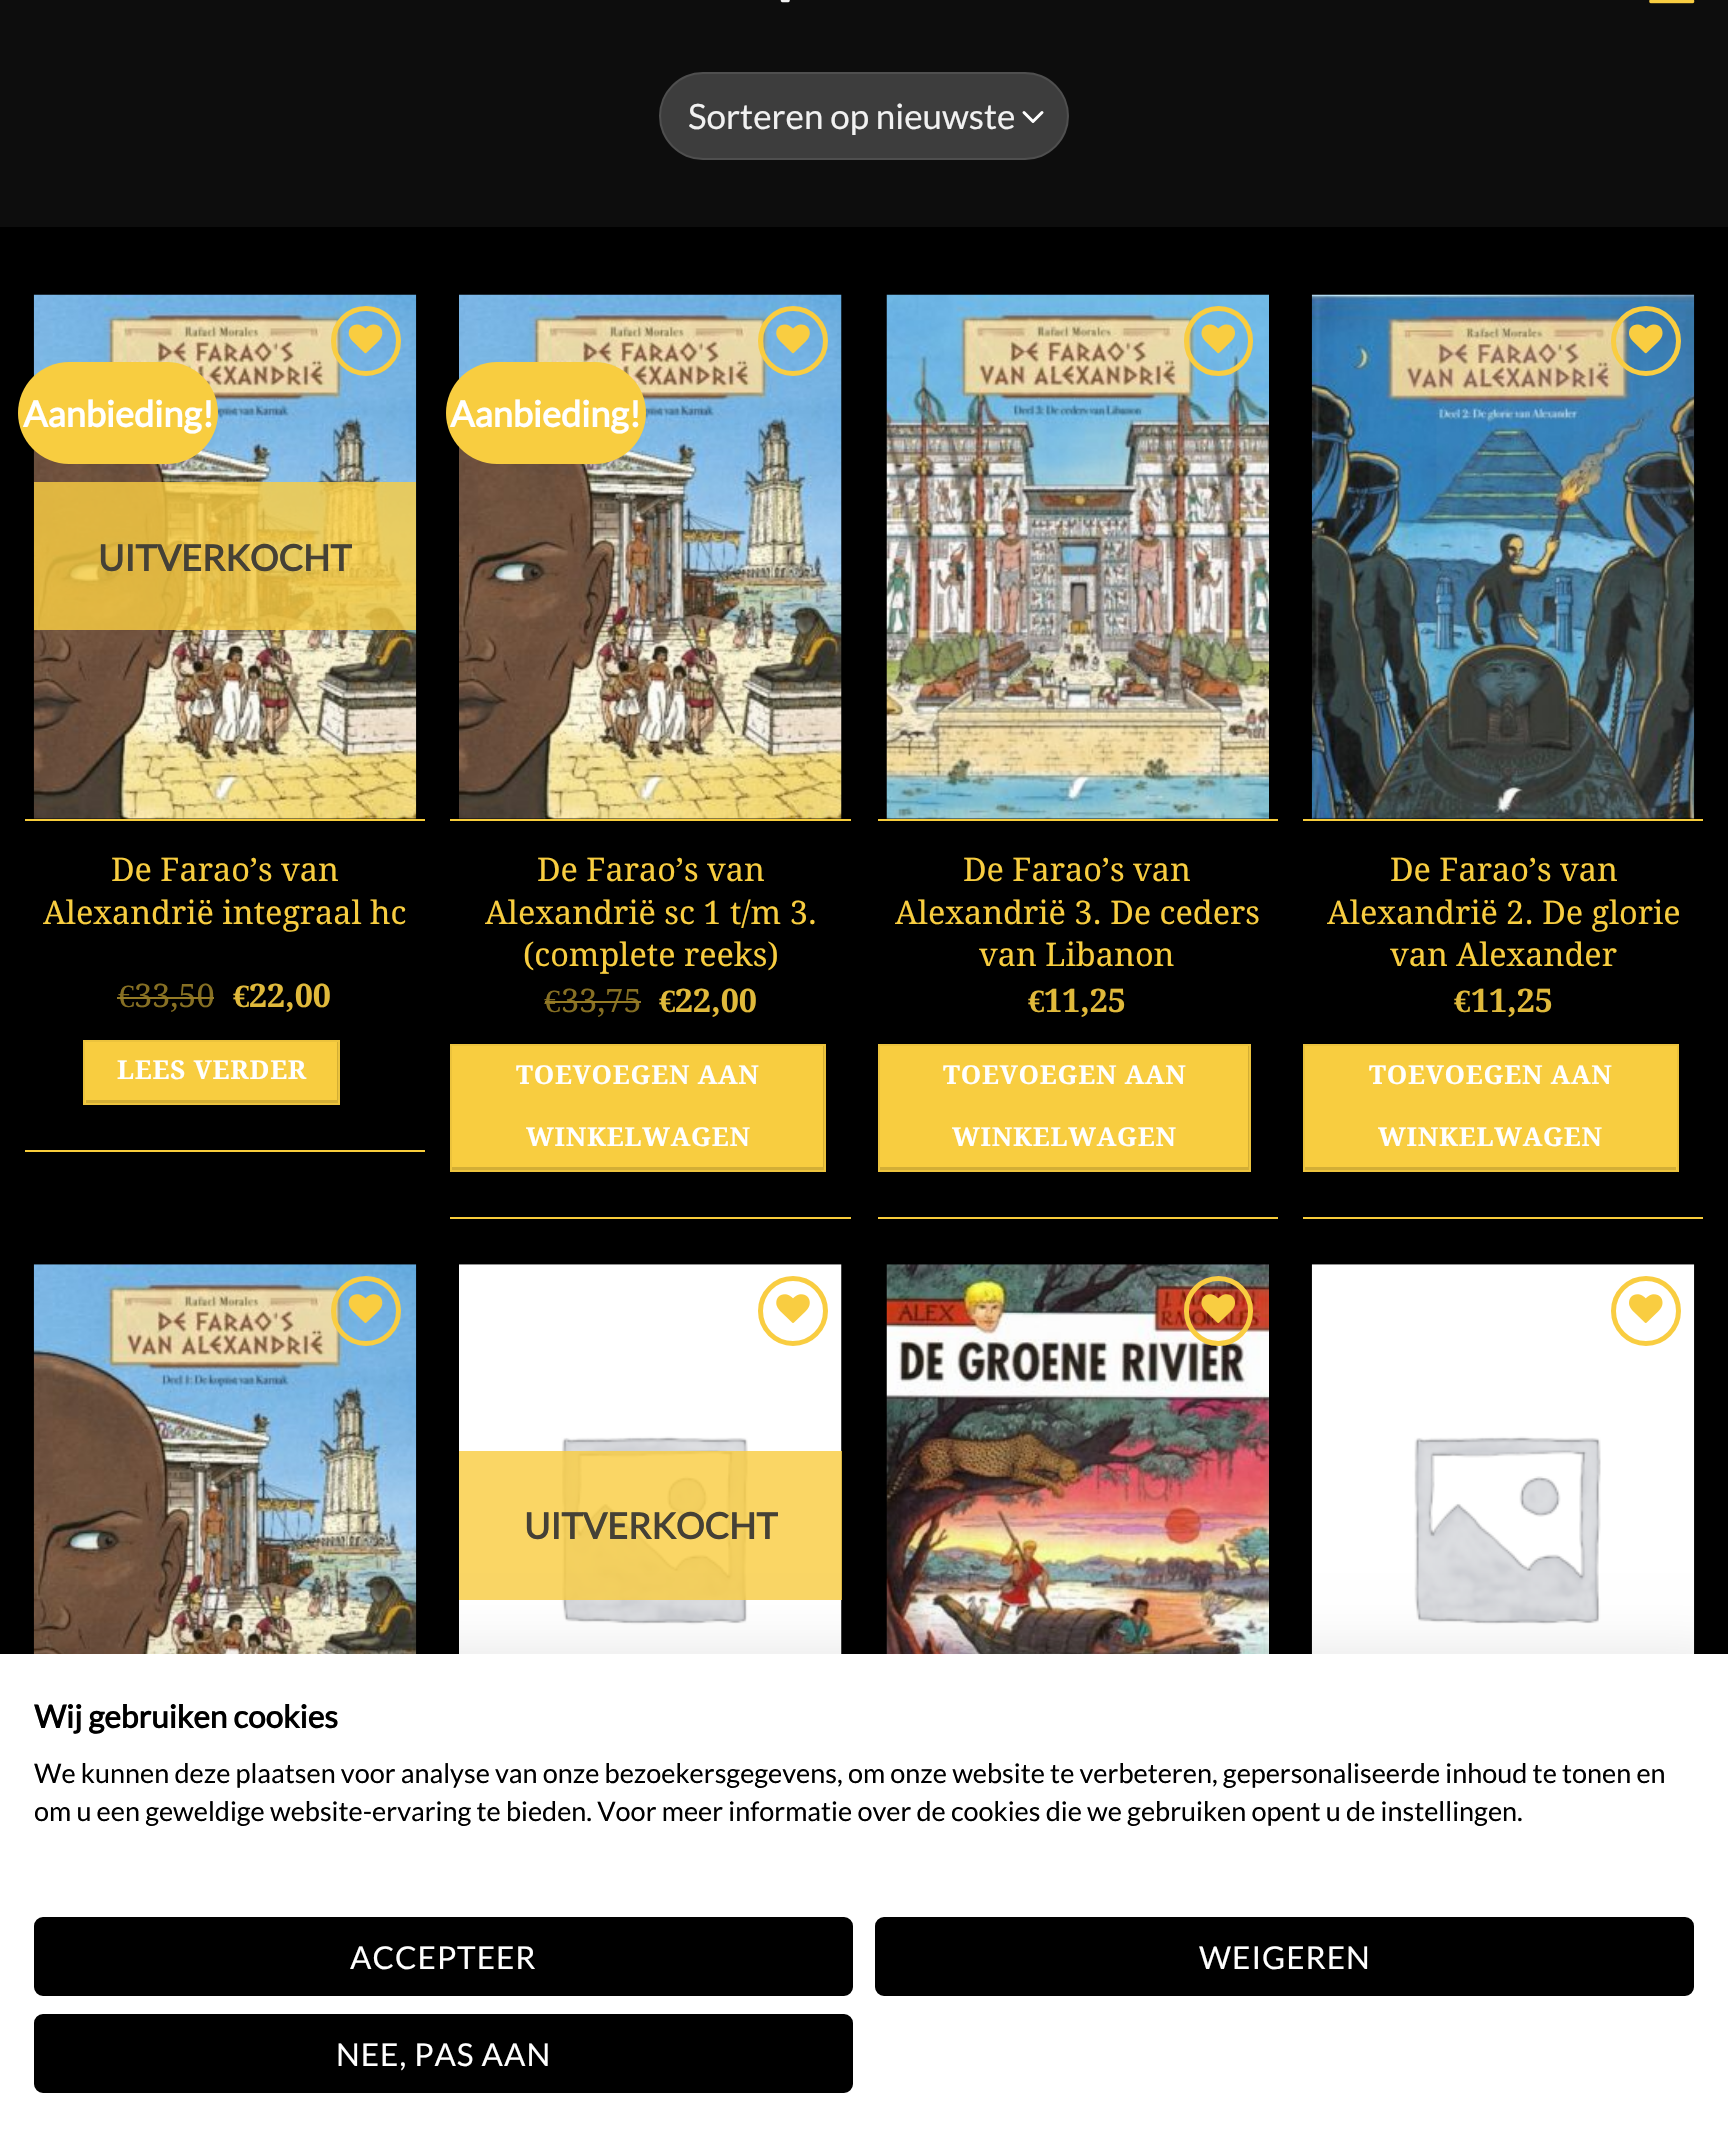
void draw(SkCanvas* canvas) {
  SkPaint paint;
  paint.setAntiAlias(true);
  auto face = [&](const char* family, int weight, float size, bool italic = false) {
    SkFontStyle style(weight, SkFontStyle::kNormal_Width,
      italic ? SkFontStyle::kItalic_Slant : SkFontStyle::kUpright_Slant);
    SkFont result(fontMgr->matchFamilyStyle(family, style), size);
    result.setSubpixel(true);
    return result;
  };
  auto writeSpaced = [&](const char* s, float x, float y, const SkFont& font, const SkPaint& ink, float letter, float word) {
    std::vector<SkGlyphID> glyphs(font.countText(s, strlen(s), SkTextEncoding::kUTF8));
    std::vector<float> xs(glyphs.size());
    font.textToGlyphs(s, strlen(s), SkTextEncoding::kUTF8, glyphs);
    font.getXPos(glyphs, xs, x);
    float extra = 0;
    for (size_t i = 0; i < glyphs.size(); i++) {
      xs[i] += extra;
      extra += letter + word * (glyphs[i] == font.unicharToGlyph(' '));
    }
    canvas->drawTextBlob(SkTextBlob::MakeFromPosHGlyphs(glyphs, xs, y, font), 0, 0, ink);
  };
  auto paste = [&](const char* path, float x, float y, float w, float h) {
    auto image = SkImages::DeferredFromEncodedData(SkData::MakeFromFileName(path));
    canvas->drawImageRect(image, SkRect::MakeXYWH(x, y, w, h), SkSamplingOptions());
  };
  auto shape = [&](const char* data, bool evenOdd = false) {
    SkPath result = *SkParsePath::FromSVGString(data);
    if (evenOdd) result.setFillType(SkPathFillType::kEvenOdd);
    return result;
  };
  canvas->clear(0xff000000);
  paint.setColor(0xff0d0d0d);
  canvas->drawRect(SkRect::MakeXYWH(0, 0, 1728, 227), paint);
  paste("img/1.png", 1649, 0, 46, 4);
  paste("img/2.png", 780, 0, 10, 3);
  paint.setColor(0xff3d3d3d);
  canvas->drawRoundRect(SkRect::MakeXYWH(659, 72, 410, 88), 44, 44, paint);
  paint.setStroke(true);
  paint.setStrokeWidth(3);
  paint.setStrokeCap(SkPaint::kRound_Cap);
  paint.setStrokeJoin(SkPaint::kRound_Join);
  paint.setColor(0xffffffff);
  canvas->drawPath(shape("M1024 112.5L1033 121.5L1042 112.5"), paint);
  paint.setStrokeWidth(2);
  paint.setStrokeCap(SkPaint::kButt_Cap);
  paint.setStrokeJoin(SkPaint::kMiter_Join);
  paint.setColor(0x17ffffff);
  canvas->drawRoundRect(SkRect::MakeXYWH(660, 73, 408, 86), 43, 43, paint);
  paste("img/3.png", 33, 294, 384, 525);
  paint.setStroke(false);
  paint.setColor(0xfff8cd40);
  canvas->drawRoundRect(SkRect::MakeXYWH(18, 362, 200, 102), 51, 51, paint);
  paint.setStroke(true);
  paint.setStrokeWidth(5);
  paint.setColor(0xfff9cd41);
  canvas->drawCircle(366, 341, 32.5f, paint);
  paste("img/4.png", 348, 324, 35, 30);
  paint.setStroke(false);
  {
    const struct { float x, y, w, h; SkColor color; } items[] = {
      {34, 482, 382, 148, 0xcff9cd41},
      {25, 819, 400, 2, 0xfff8cd3b},
      {25, 1150, 400, 2, 0xfff8cd3b},
      {85, 1042, 252, 61, 0xfff8cd40},
    };
    for (auto [x, y, w, h, color] : items) {
      paint.setColor(color);
      canvas->drawRect(SkRect::MakeXYWH(x, y, w, h), paint);
    }
  }
  paint.setStroke(true);
  paint.setStrokeWidth(2);
  paint.setColor(0xffecc33d);
  canvas->drawRect(SkRect::MakeXYWH(84, 1041, 255, 63), paint);
  paste("img/5.png", 459, 294, 383, 525);
  paint.setStroke(false);
  paint.setColor(0xfff8cd40);
  canvas->drawRoundRect(SkRect::MakeXYWH(446, 362, 200, 102), 51, 51, paint);
  paint.setStroke(true);
  paint.setStrokeWidth(5);
  paint.setColor(0xfff9cd41);
  canvas->drawCircle(793, 341, 32.5f, paint);
  paste("img/6.png", 776, 324, 34, 30);
  paint.setStroke(false);
  {
    const struct { float x, y, w, h; SkColor color; } items[] = {
      {450, 819, 401, 2, 0xfff8cd3b},
      {450, 1217, 401, 2, 0xfff8cd3b},
      {452, 1046, 371, 121, 0xfff8cd40},
    };
    for (auto [x, y, w, h, color] : items) {
      paint.setColor(color);
      canvas->drawRect(SkRect::MakeXYWH(x, y, w, h), paint);
    }
  }
  paint.setStroke(true);
  paint.setStrokeWidth(2);
  paint.setColor(0xffecc33d);
  canvas->drawRect(SkRect::MakeXYWH(451, 1045, 374, 126), paint);
  paste("img/7.png", 886, 294, 383, 525);
  paint.setStrokeWidth(5);
  paint.setColor(0xfff9cd41);
  canvas->drawRoundRect(SkRect::MakeXYWH(1186.5f, 308.5f, 64, 65), 32, 32, paint);
  paste("img/8.png", 1201, 324, 34, 30);
  paint.setStroke(false);
  {
    const struct { float x, y, w, h; SkColor color; } items[] = {
      {878, 819, 400, 2, 0xfff8cd3b},
      {878, 1217, 400, 2, 0xfff8cd3b},
      {880, 1046, 368, 121, 0xfff8cd40},
    };
    for (auto [x, y, w, h, color] : items) {
      paint.setColor(color);
      canvas->drawRect(SkRect::MakeXYWH(x, y, w, h), paint);
    }
  }
  paint.setStroke(true);
  paint.setStrokeWidth(2);
  paint.setColor(0xffecc33d);
  canvas->drawRect(SkRect::MakeXYWH(879, 1045, 371, 126), paint);
  paste("img/9.png", 1311, 294, 384, 525);
  paint.setStrokeWidth(5);
  paint.setColor(0xfff9cd41);
  canvas->drawCircle(1646, 341, 32.5f, paint);
  paste("img/10.png", 1629, 324, 34, 30);
  paint.setStroke(false);
  paint.setColor(0xfff8cd3b);
  canvas->drawRect(SkRect::MakeXYWH(1303, 819, 400, 2), paint);
  canvas->drawRect(SkRect::MakeXYWH(1303, 1217, 400, 2), paint);
  paint.setColor(0xfff8cd40);
  canvas->drawRect(SkRect::MakeXYWH(1304, 1045, 374, 126), paint);
  paint.setStroke(true);
  paint.setStrokeWidth(2);
  paint.setColor(0xffecc33d);
  canvas->drawRect(SkRect::MakeXYWH(1304, 1045, 374, 126), paint);
  canvas->save();
  canvas->clipRect(SkRect::MakeXYWH(1305, 1046, 371, 124));
  paint.setStroke(false);
  paint.setColor(0xffd3ae36);
  canvas->drawPath(shape("M1082 824H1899V1393H1082ZM1305 1044H1676V1167H1305Z", true), paint);
  canvas->restore();
  paste("img/11.png", 33, 1264, 384, 390);
  paint.setStroke(true);
  paint.setStrokeWidth(5);
  paint.setColor(0xfff9cd41);
  canvas->drawCircle(366, 1311, 32.5f, paint);
  paste("img/12.png", 348, 1294, 35, 29);
  paste("img/13.png", 459, 1264, 383, 390);
  canvas->drawCircle(793, 1311, 32.5f, paint);
  paste("img/14.png", 776, 1294, 34, 29);
  paint.setStroke(false);
  paint.setColor(0xcff9cd41);
  canvas->drawRect(SkRect::MakeXYWH(459, 1451, 383, 149), paint);
  paste("img/15.png", 886, 1264, 383, 390);
  paint.setStroke(true);
  paint.setColor(0xfff9cd41);
  canvas->drawRoundRect(SkRect::MakeXYWH(1186.5f, 1278.5f, 64, 65), 32, 32, paint);
  paste("img/16.png", 1201, 1294, 34, 29);
  paste("img/17.png", 1311, 1264, 384, 390);
  canvas->drawCircle(1646, 1311, 32.5f, paint);
  paste("img/18.png", 1629, 1294, 34, 29);
  paint.setStroke(false);
  paint.setColor(0x1a000000);
  paint.setMaskFilter(SkMaskFilter::MakeBlur(kNormal_SkBlurStyle, 27));
  canvas->drawRect(SkRect::MakeXYWH(0, 1654, 1728, 499), paint);
  paint.setMaskFilter(nullptr);
  paint.setColor(0xffffffff);
  canvas->drawRect(SkRect::MakeXYWH(0, 1654, 1728, 499), paint);
  paint.setColor(0xff000000);
  canvas->drawRoundRect(SkRect::MakeXYWH(35, 1918, 817, 77), 8, 8, paint);
  paint.setStroke(true);
  paint.setStrokeWidth(2);
  canvas->drawRoundRect(SkRect::MakeXYWH(35, 1918, 817, 77), 8, 8, paint);
  paint.setStroke(false);
  canvas->drawRoundRect(SkRect::MakeXYWH(876, 1918, 817, 77), 8, 8, paint);
  paint.setStroke(true);
  canvas->drawRoundRect(SkRect::MakeXYWH(876, 1918, 817, 77), 8, 8, paint);
  paint.setStroke(false);
  canvas->drawRoundRect(SkRect::MakeXYWH(35, 2015, 817, 77), 8, 8, paint);
  paint.setStroke(true);
  canvas->drawRoundRect(SkRect::MakeXYWH(35, 2015, 817, 77), 8, 8, paint);
  auto f0 = face("Lato", 400, 35);
  paint.setStroke(false);
  paint.setColor(0xfff1f1f1);
  canvas->drawString("Sorteren op nieuwste", 688, 129, f0, paint);
  auto f1 = face("Lato", 700, 36);
  paint.setColor(0xffffffff);
  canvas->drawString("Aanbieding!", 23, 427, f1, paint);
  paint.setColor(0xff454136);
  canvas->drawString("UITVERKOCHT", 98, 571, f1, paint);
  auto f2 = face("Droid Serif", 400, 32.4f);
  paint.setColor(0xfff8cd40);
  canvas->drawString("De Farao’s van", 111, 881, f2, paint);
  canvas->drawString("Alexandrië integraal hc", 43, 924, f2, paint);
  auto f3 = face("Liberation Serif", 400, 32.4f);
  paint.setColor(0xff866f23);
  canvas->drawString("€", 118, 1007, f3, paint);
  canvas->drawString("33,50", 134, 1007, f2, paint);
  paint.setColor(0xff957b26);
  canvas->drawRect(SkRect::MakeXYWH(117, 997, 18, 2), paint);
  canvas->drawRect(SkRect::MakeXYWH(135, 997, 79, 2), paint);
  auto f4 = face("Liberation Serif", 700, 32.4f);
  paint.setColor(0xffe0b93b);
  canvas->drawString("€", 233, 1007, f4, paint);
  auto f5 = face("Droid Serif", 700, 32.4f);
  canvas->drawString("22,00", 249, 1007, f5, paint);
  auto f6 = face("Droid Serif", 700, 26);
  paint.setColor(0xffffffff);
  writeSpaced("LEES VERDER", 117, 1079, f6, paint, 0.75f, 0);
  canvas->save();
  canvas->clipRect(SkRect::MakeXYWH(86, 1042, 252, 61));
  paint.setColor(0xffd3ae36);
  canvas->drawPath(shape("M-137 819H560V1325H-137ZM85 1039H337V1100H85Z", true), paint);
  canvas->restore();
  paint.setColor(0xffffffff);
  canvas->drawString("Aanbieding!", 450, 427, f1, paint);
  paint.setColor(0xfff8cd40);
  {
    const struct { const char* s; float x, y; } items[] = {
      {"De Farao’s van", 537, 881},
      {"Alexandrië sc 1 t/m 3.", 485, 924},
      {"(complete reeks)", 523, 966},
    };
    for (auto [s, x, y] : items) {
      canvas->drawString(s, x, y, f2, paint);
    }
  }
  paint.setColor(0xff866f23);
  canvas->drawString("€", 544, 1012, f3, paint);
  paint.setColor(0xff957b26);
  canvas->drawRect(SkRect::MakeXYWH(545, 1001, 15, 2), paint);
  paint.setColor(0xff866f23);
  canvas->drawString("33,75", 561, 1012, f2, paint);
  paint.setColor(0xff957b26);
  canvas->drawRect(SkRect::MakeXYWH(560, 1001, 81, 2), paint);
  paint.setColor(0xffe0b93b);
  canvas->drawString("€", 659, 1012, f4, paint);
  canvas->drawString("22,00", 675, 1012, f5, paint);
  paint.setColor(0xffffffff);
  writeSpaced("TOEVOEGEN AAN", 516, 1084, f6, paint, 0.75f, 0);
  writeSpaced("WINKELWAGEN", 526, 1146, f6, paint, 0.75f, 0);
  canvas->save();
  canvas->clipRect(SkRect::MakeXYWH(452, 1046, 372, 124));
  paint.setColor(0xffd3ae36);
  canvas->drawPath(shape("M230 824H1046V1393H230ZM452 1044H823V1167H452Z", true), paint);
  canvas->restore();
  paint.setColor(0xfff8cd40);
  {
    const struct { const char* s; float x, y; } items[] = {
      {"De Farao’s van", 963, 881},
      {"Alexandrië 3. De ceders", 895, 924},
      {"van Libanon", 979, 966},
    };
    for (auto [s, x, y] : items) {
      canvas->drawString(s, x, y, f2, paint);
    }
  }
  paint.setColor(0xffe0b93b);
  canvas->drawString("€", 1028, 1012, f4, paint);
  canvas->drawString("11,25", 1044, 1012, f5, paint);
  paint.setColor(0xffffffff);
  writeSpaced("TOEVOEGEN AAN", 943, 1084, f6, paint, 0.75f, 0);
  writeSpaced("WINKELWAGEN", 952, 1146, f6, paint, 0.75f, 0);
  canvas->save();
  canvas->clipRect(SkRect::MakeXYWH(880, 1046, 369, 124));
  paint.setColor(0xffd3ae36);
  canvas->drawPath(shape("M657 824H1472V1393H657ZM879 1044H1248V1167H879Z", true), paint);
  canvas->restore();
  paint.setColor(0xfff8cd40);
  {
    const struct { const char* s; float x, y; } items[] = {
      {"De Farao’s van", 1390, 881},
      {"Alexandrië 2. De glorie", 1327, 924},
      {"van Alexander", 1390, 966},
    };
    for (auto [s, x, y] : items) {
      canvas->drawString(s, x, y, f2, paint);
    }
  }
  paint.setColor(0xffe0b93b);
  canvas->drawString("€", 1454, 1012, f4, paint);
  canvas->drawString("11,25", 1471, 1012, f5, paint);
  paint.setColor(0xffffffff);
  writeSpaced("TOEVOEGEN AAN", 1369, 1084, f6, paint, 0.75f, 0);
  writeSpaced("WINKELWAGEN", 1378, 1146, f6, paint, 0.75f, 0);
  paint.setColor(0xff454136);
  canvas->drawString("UITVERKOCHT", 524, 1539, f1, paint);
  auto f7 = face("Lato", 700, 31.5f);
  paint.setColor(0xff000000);
  canvas->drawString("Wij gebruiken cookies", 34, 1728, f7, paint);
  auto f8 = face("Lato", 400, 27);
  canvas->drawString("We kunnen deze plaatsen voor analyse van onze bezoekersgegevens, om onze website te verbeteren, gepersonaliseerde inhoud te tonen en", 34, 1783, f8, paint);
  canvas->drawString("om u een geweldige website-ervaring te bieden. Voor meer informatie over de cookies die we gebruiken opent u de instellingen.", 34, 1821, f8, paint);
  auto f9 = face("Lato", 400, 31.5f);
  paint.setColor(0xffffffff);
  {
    const struct { const char* s; float x, y; } items[] = {
      {"ACCEPTEER", 350, 1969},
      {"WEIGEREN", 1199, 1969},
      {"NEE, PAS AAN", 336, 2066},
    };
    for (auto [s, x, y] : items) {
      writeSpaced(s, x, y, f9, paint, 1, 0);
    }
  }
}
